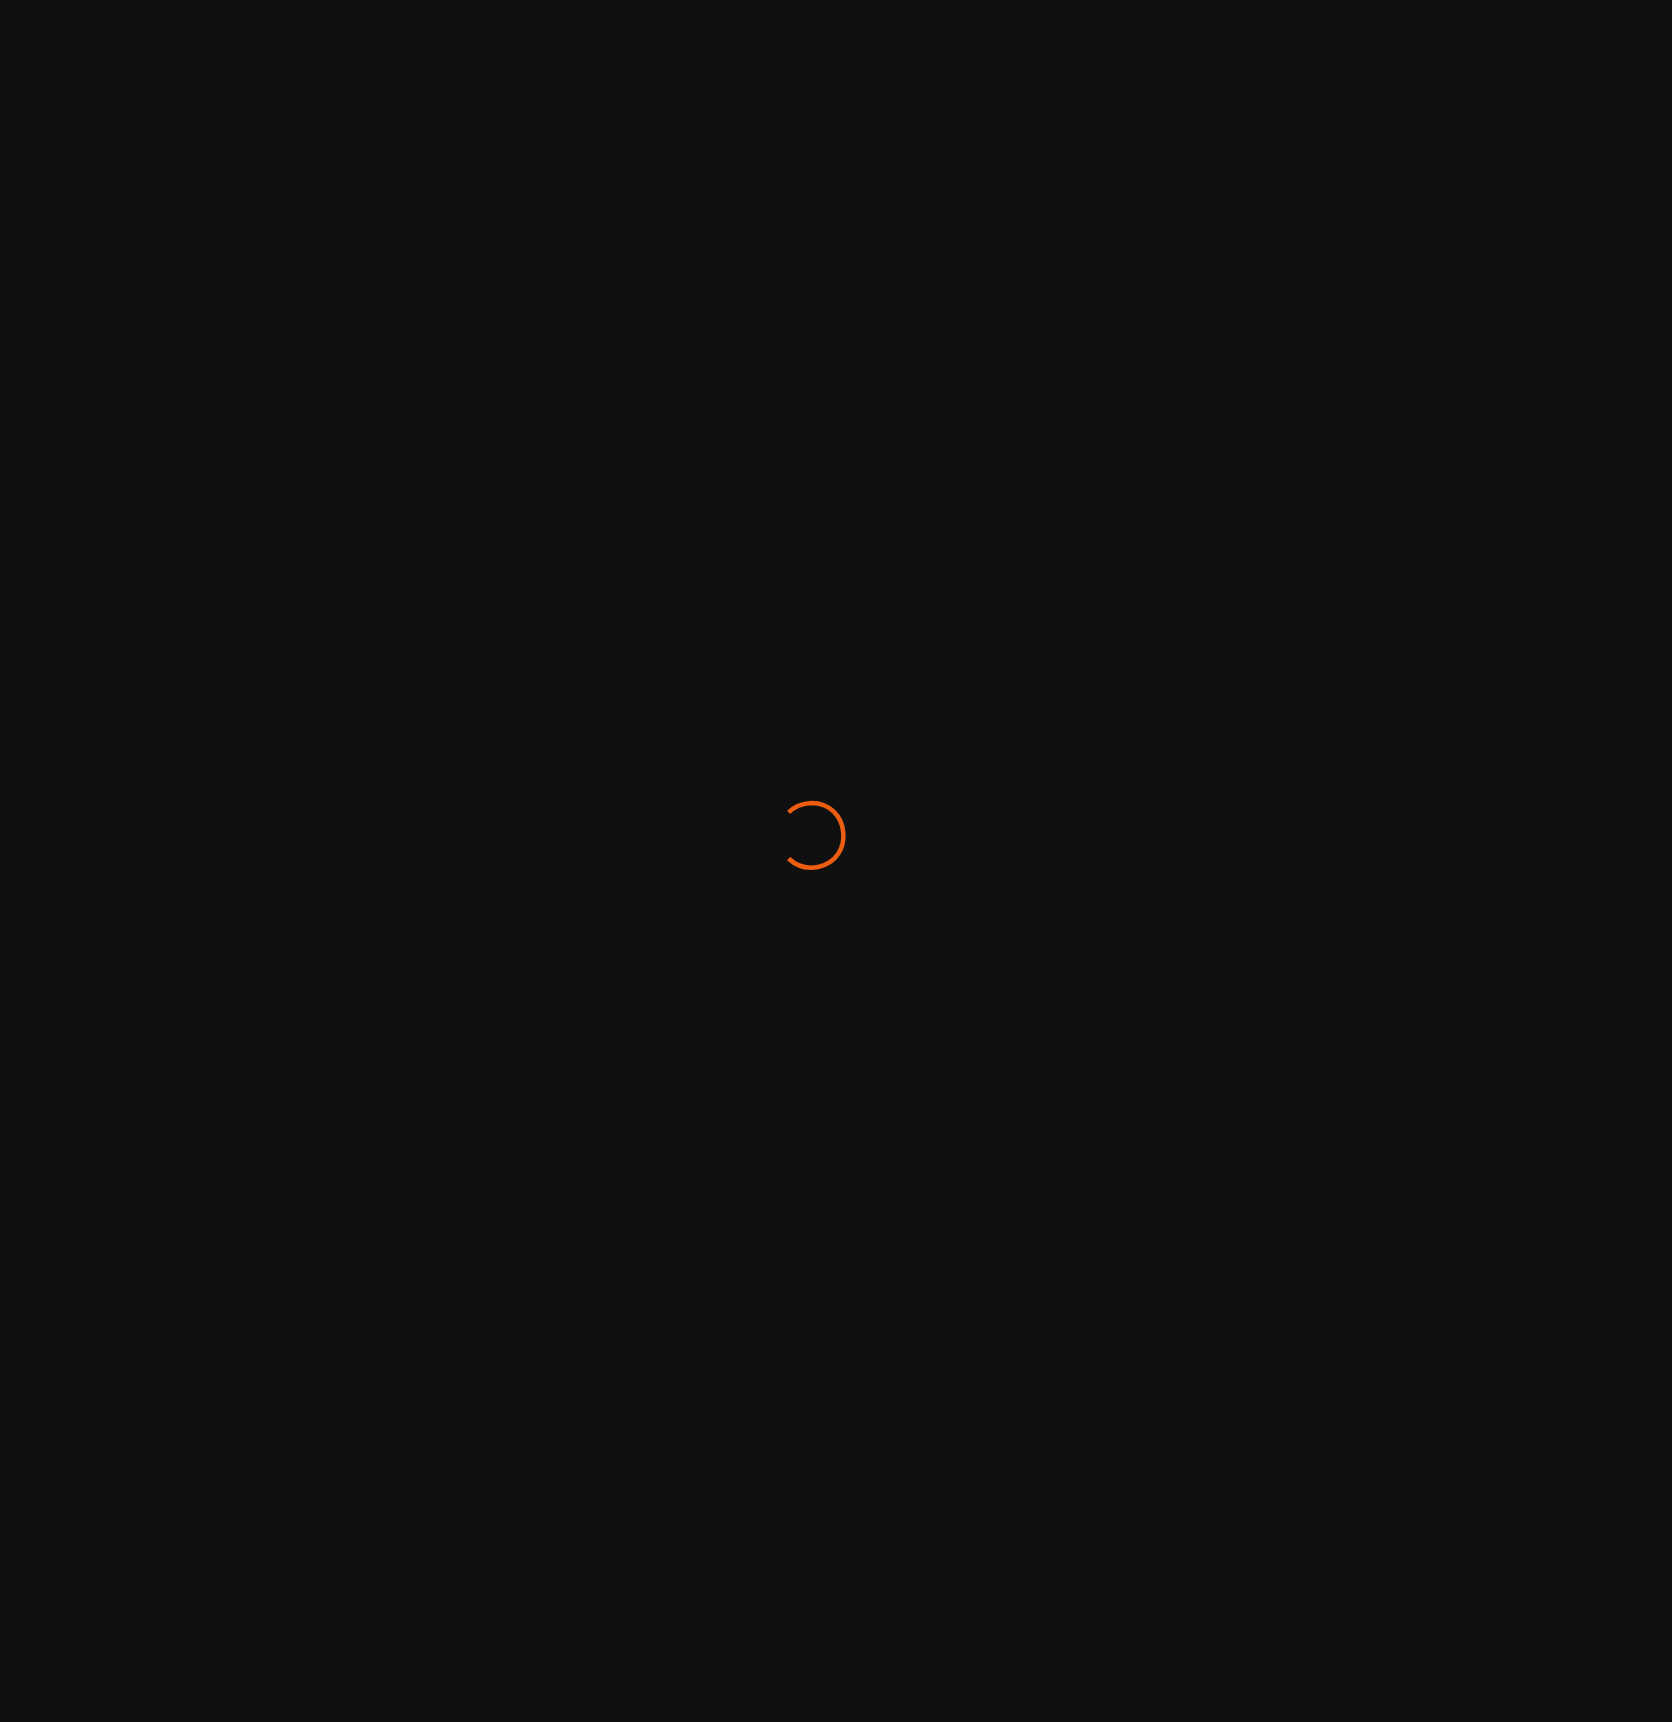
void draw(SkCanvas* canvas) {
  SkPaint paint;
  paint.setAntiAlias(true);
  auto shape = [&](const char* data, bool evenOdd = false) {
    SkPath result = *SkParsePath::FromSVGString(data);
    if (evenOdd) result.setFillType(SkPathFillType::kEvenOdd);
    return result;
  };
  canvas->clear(0xff101010);
  paint.setStroke(true);
  paint.setStrokeWidth(4.5f);
  paint.setColor(0xffec5d12);
  canvas->drawPath(shape("M788.5 812.5C794.5 806.5 803 803.5 811.5 803C850 803 855.5 859.5 818 867C807.5 869 796.5 866 788.5 858.5"), paint);
  paint.setColor(0xff101010);
  canvas->drawPath(shape("M788.5 858.5C776.5 846 776.5 825 788.5 812.5"), paint);
}
